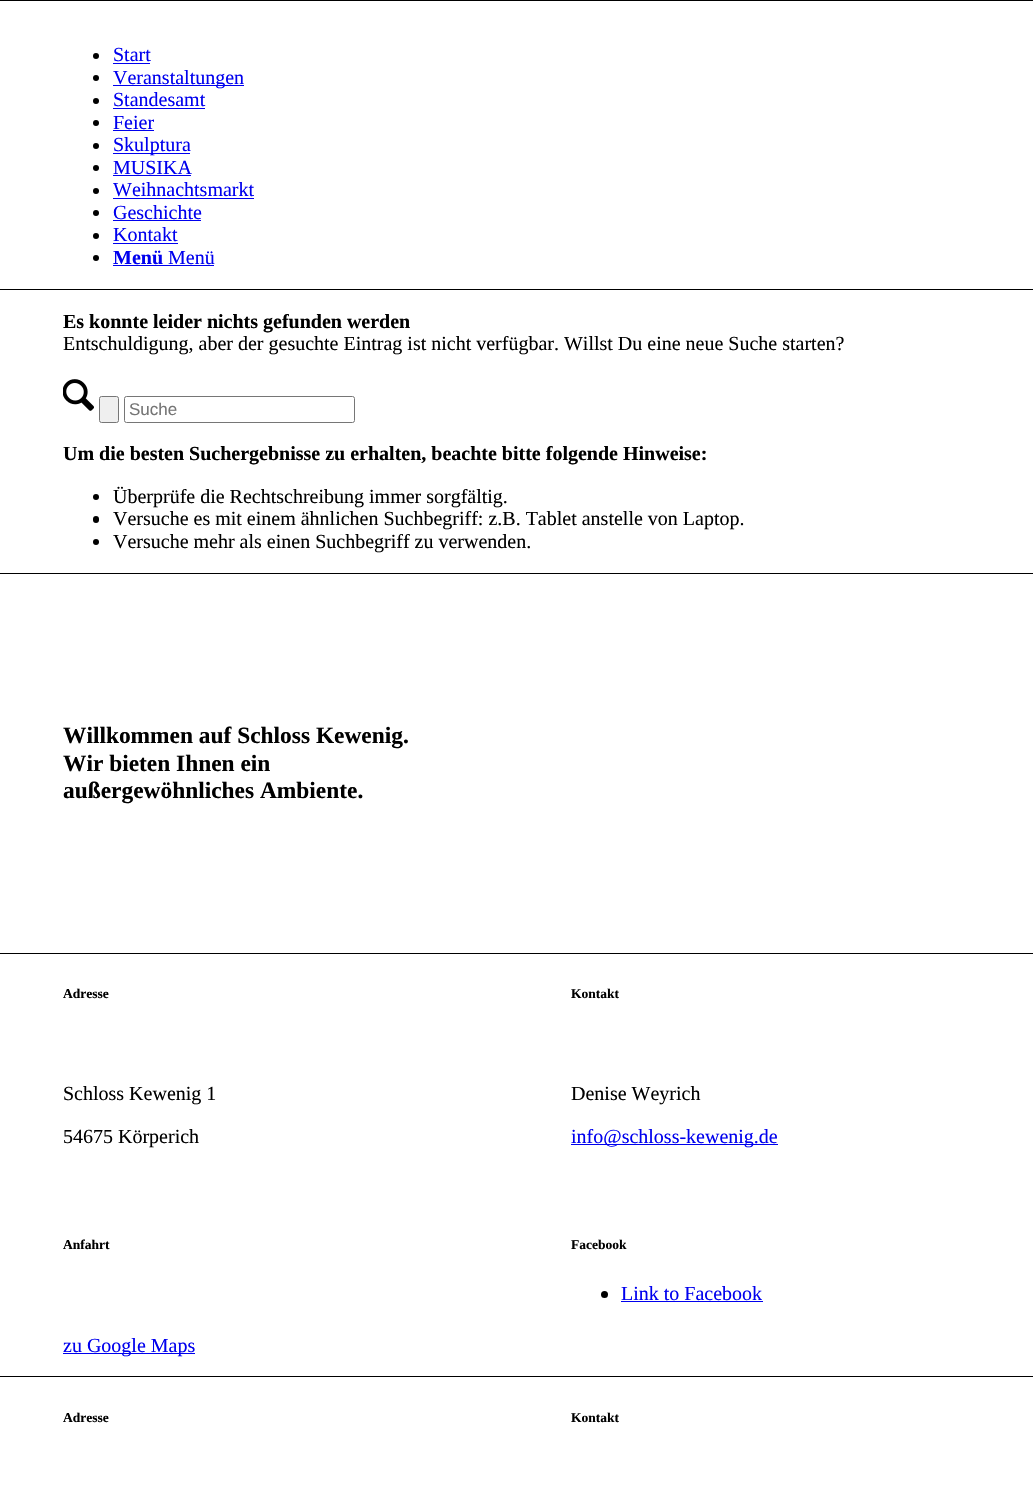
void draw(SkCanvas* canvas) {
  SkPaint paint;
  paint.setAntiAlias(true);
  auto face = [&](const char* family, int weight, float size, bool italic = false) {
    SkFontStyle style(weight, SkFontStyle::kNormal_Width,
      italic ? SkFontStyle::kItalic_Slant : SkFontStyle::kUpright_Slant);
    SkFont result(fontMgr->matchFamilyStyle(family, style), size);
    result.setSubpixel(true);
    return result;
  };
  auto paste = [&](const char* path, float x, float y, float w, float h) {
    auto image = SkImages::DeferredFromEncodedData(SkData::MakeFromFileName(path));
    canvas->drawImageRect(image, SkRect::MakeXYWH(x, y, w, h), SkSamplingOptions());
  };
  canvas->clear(0xffffffff);
  paint.setColor(0xff000000);
  canvas->drawRect(SkRect::MakeXYWH(0, 0, 1033, 1), paint);
  canvas->drawCircle(96, 56, 3, paint);
  paint.setColor(0xff0000ee);
  canvas->drawRect(SkRect::MakeXYWH(113, 63, 37, 1), paint);
  paint.setColor(0xff000000);
  canvas->drawCircle(96, 78, 3, paint);
  paint.setColor(0xff0000ee);
  canvas->drawRect(SkRect::MakeXYWH(113, 85, 131, 1), paint);
  paint.setColor(0xff000000);
  canvas->drawCircle(96, 101, 3, paint);
  paint.setColor(0xff0000ee);
  canvas->drawRect(SkRect::MakeXYWH(113, 108, 92, 1), paint);
  paint.setColor(0xff000000);
  canvas->drawCircle(96, 123, 3, paint);
  paint.setColor(0xff0000ee);
  canvas->drawRect(SkRect::MakeXYWH(113, 130, 41, 1), paint);
  paint.setColor(0xff000000);
  canvas->drawCircle(96, 146, 3, paint);
  paint.setColor(0xff0000ee);
  canvas->drawRect(SkRect::MakeXYWH(113, 153, 77, 1), paint);
  paint.setColor(0xff000000);
  canvas->drawCircle(96, 168, 3, paint);
  paint.setColor(0xff0000ee);
  canvas->drawRect(SkRect::MakeXYWH(113, 175, 78, 1), paint);
  paint.setColor(0xff000000);
  canvas->drawCircle(96, 191, 3, paint);
  paint.setColor(0xff0000ee);
  canvas->drawRect(SkRect::MakeXYWH(113, 198, 141, 1), paint);
  paint.setColor(0xff000000);
  canvas->drawCircle(96, 213, 3, paint);
  paint.setColor(0xff0000ee);
  canvas->drawRect(SkRect::MakeXYWH(113, 220, 88, 1), paint);
  paint.setColor(0xff000000);
  canvas->drawCircle(96, 236, 3, paint);
  paint.setColor(0xff0000ee);
  canvas->drawRect(SkRect::MakeXYWH(113, 243, 65, 1), paint);
  paint.setColor(0xff000000);
  canvas->drawCircle(96, 258, 3, paint);
  paint.setColor(0xff0000ee);
  canvas->drawRect(SkRect::MakeXYWH(113, 265, 101, 1), paint);
  paint.setColor(0xff000000);
  canvas->drawRect(SkRect::MakeXYWH(0, 289, 1033, 1), paint);
  paste("img/1.png", 63, 379, 31, 32);
  paint.setColor(0xffefefef);
  canvas->drawRoundRect(SkRect::MakeXYWH(99.5f, 396.5f, 19, 26), 2, 2, paint);
  paint.setStroke(true);
  paint.setStrokeWidth(1);
  paint.setColor(0xff767676);
  canvas->drawRoundRect(SkRect::MakeXYWH(99.5f, 396.5f, 19, 26), 2, 2, paint);
  canvas->drawRoundRect(SkRect::MakeXYWH(124.5f, 396.5f, 230, 26), 2, 2, paint);
  paint.setStroke(false);
  paint.setColor(0xff000000);
  canvas->drawCircle(96, 497, 3, paint);
  canvas->drawRoundRect(SkRect::MakeXYWH(93, 516, 6, 7), 3, 3, paint);
  canvas->drawCircle(96, 542, 3, paint);
  {
    const struct { float x, y, w, h; SkColor color; } items[] = {
      {0, 573, 1033, 1, 0xff000000},
      {0, 953, 1033, 1, 0xff000000},
      {571, 1144, 207, 1, 0xff0000ee},
      {63, 1353, 132, 1, 0xff0000ee},
    };
    for (auto [x, y, w, h, color] : items) {
      paint.setColor(color);
      canvas->drawRect(SkRect::MakeXYWH(x, y, w, h), paint);
    }
  }
  paint.setColor(0xff000000);
  canvas->drawCircle(604.5f, 1294.5f, 3.5f, paint);
  paint.setColor(0xff0000ee);
  canvas->drawRect(SkRect::MakeXYWH(621, 1301, 142, 1), paint);
  paint.setColor(0xff000000);
  canvas->drawRect(SkRect::MakeXYWH(0, 1376, 1033, 1), paint);
  auto f0 = face("Liberation Serif", 400, 20);
  paint.setColor(0xff0000ee);
  {
    const struct { const char* s; float x, y; } items[] = {
      {"Start", 113, 61},
      {"Veranstaltungen", 113, 84},
      {"Standesamt", 113, 106},
      {"Feier", 113, 129},
      {"Skulptura", 113, 151},
      {"MUSIKA", 113, 174},
      {"Weihnachtsmarkt", 113, 196},
      {"Geschichte", 113, 219},
      {"Kontakt", 113, 241},
    };
    for (auto [s, x, y] : items) {
      canvas->drawString(s, x, y, f0, paint);
    }
  }
  auto f1 = face("Liberation Serif", 700, 20);
  canvas->drawString("Menü", 113, 264, f1, paint);
  canvas->drawString("Menü", 168, 264, f0, paint);
  paint.setColor(0xff000000);
  canvas->drawString("Es konnte leider nichts gefunden werden", 63, 328, f1, paint);
  canvas->drawString("Entschuldigung, aber der gesuchte Eintrag ist nicht verfügbar. Willst Du eine neue Suche starten?", 63, 350, f0, paint);
  auto f2 = face("Liberation Sans", 400, 17);
  paint.setColor(0xff757575);
  canvas->drawString("Suche", 129, 415, f2, paint);
  paint.setColor(0xff000000);
  canvas->drawString("Um die besten Suchergebnisse zu erhalten, beachte bitte folgende Hinweise:", 63, 460, f1, paint);
  {
    const struct { const char* s; float x, y; } items[] = {
      {"Überprüfe die Rechtschreibung immer sorgfältig.", 113, 503},
      {"Versuche es mit einem ähnlichen Suchbegriff: z.B. Tablet anstelle von Laptop.", 113, 525},
      {"Versuche mehr als einen Suchbegriff zu verwenden.", 113, 548},
    };
    for (auto [s, x, y] : items) {
      canvas->drawString(s, x, y, f0, paint);
    }
  }
  auto f3 = face("Liberation Serif", 700, 23.4f);
  {
    const struct { const char* s; float x, y; } items[] = {
      {"Willkommen auf Schloss Kewenig.", 63, 743},
      {"Wir bieten Ihnen ein", 63, 771},
      {"außergewöhnliches Ambiente.", 63, 798},
    };
    for (auto [s, x, y] : items) {
      canvas->drawString(s, x, y, f3, paint);
    }
  }
  auto f4 = face("Liberation Serif", 700, 13.5f);
  canvas->drawString("Adresse", 63, 998, f4, paint);
  canvas->drawString("Schloss Kewenig 1", 63, 1100, f0, paint);
  canvas->drawString("54675 Körperich", 63, 1143, f0, paint);
  canvas->drawString("Kontakt", 571, 998, f4, paint);
  canvas->drawString("Denise Weyrich", 571, 1100, f0, paint);
  paint.setColor(0xff0000ee);
  canvas->drawString("info@schloss-kewenig.de", 571, 1143, f0, paint);
  paint.setColor(0xff000000);
  canvas->drawString("Anfahrt", 63, 1249, f4, paint);
  paint.setColor(0xff0000ee);
  canvas->drawString("zu Google Maps", 63, 1352, f0, paint);
  paint.setColor(0xff000000);
  canvas->drawString("Facebook", 571, 1249, f4, paint);
  paint.setColor(0xff0000ee);
  canvas->drawString("Link to Facebook", 621, 1300, f0, paint);
  paint.setColor(0xff000000);
  canvas->drawString("Adresse", 63, 1422, f4, paint);
  canvas->drawString("Kontakt", 571, 1422, f4, paint);
}
